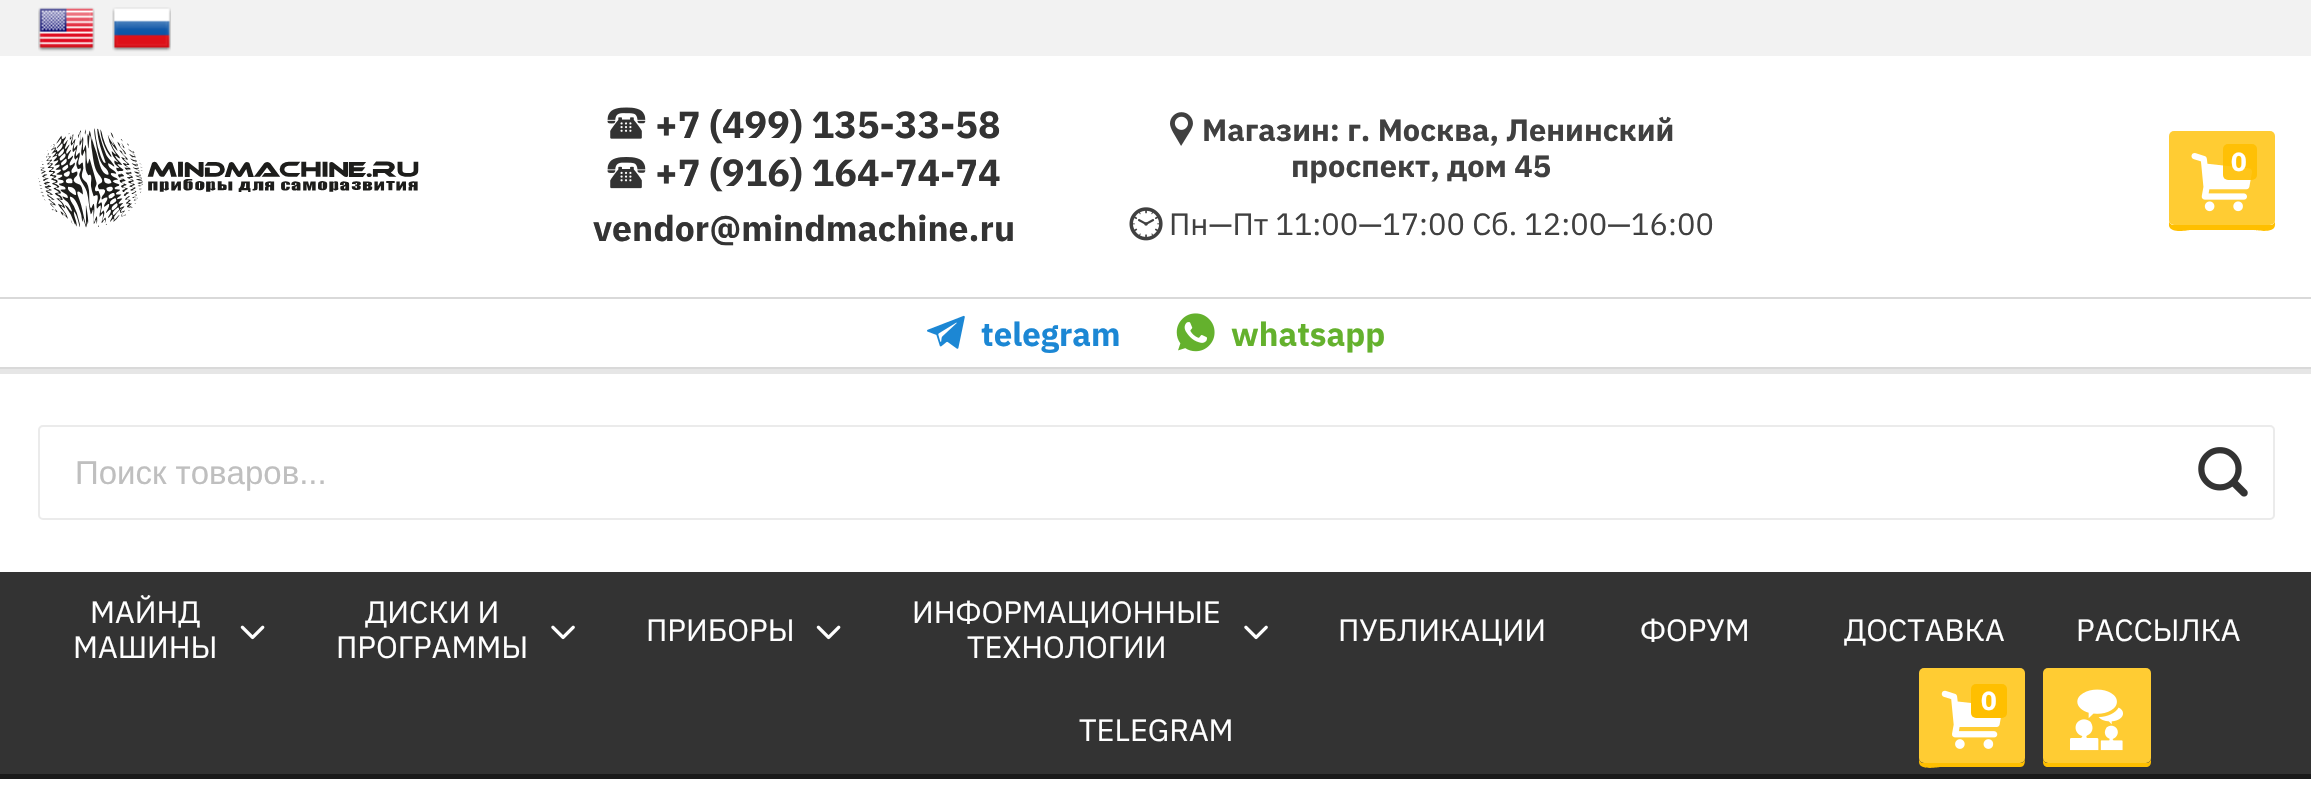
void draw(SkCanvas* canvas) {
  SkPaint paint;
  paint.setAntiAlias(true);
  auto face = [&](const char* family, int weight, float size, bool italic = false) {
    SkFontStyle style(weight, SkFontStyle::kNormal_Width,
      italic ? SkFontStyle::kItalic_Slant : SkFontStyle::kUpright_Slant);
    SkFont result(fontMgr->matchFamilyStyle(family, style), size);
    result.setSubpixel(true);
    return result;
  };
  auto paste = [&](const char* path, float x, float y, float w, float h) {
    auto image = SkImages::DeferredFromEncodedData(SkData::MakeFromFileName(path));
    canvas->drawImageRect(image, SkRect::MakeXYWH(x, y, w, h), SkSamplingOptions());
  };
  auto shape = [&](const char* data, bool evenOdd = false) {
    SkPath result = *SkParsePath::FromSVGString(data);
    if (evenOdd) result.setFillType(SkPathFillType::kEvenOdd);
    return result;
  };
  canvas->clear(0xffffffff);
  paint.setColor(0xfff2f2f2);
  canvas->drawRect(SkRect::MakeXYWH(0, 0, 2311, 56), paint);
  paste("img/1.png", 38, 7, 57, 45);
  paste("img/2.png", 112, 7, 59, 45);
  paint.setColor(0xffe6e6e6);
  canvas->drawRect(SkRect::MakeXYWH(0, 369, 2311, 5), paint);
  paste("img/3.png", 38, 128, 381, 100);
  paste("img/4.png", 607, 107, 39, 32);
  paste("img/5.png", 607, 157, 39, 32);
  paste("img/6.png", 1170, 112, 23, 34);
  paste("img/7.png", 1129, 207, 34, 34);
  paint.setColor(0xffffbf00);
  canvas->drawPath(shape("M2169 220V226C2171 234 2189 230 2190 230H2254C2255 230 2275 234 2275 225V138V220C2275 223 2273 225 2270 225H2174C2171 225 2169 223 2169 220Z"), paint);
  paint.setColor(0xffffcc33);
  canvas->drawRoundRect(SkRect::MakeXYWH(2169, 131, 106, 94), 5, 5, paint);
  paste("img/8.png", 2191, 153, 61, 59);
  paint.setColor(0xe6ffbf00);
  canvas->drawRoundRect(SkRect::MakeXYWH(2223, 144, 34, 36), 5, 5, paint);
  paint.setColor(0xffd9d9d9);
  canvas->drawRect(SkRect::MakeXYWH(0, 297, 2311, 2), paint);
  canvas->drawRect(SkRect::MakeXYWH(0, 367, 2311, 2), paint);
  paste("img/9.png", 927, 315, 38, 34);
  paste("img/10.png", 1176, 313, 39, 39);
  paint.setStroke(true);
  paint.setStrokeWidth(2);
  paint.setColor(0xffebebeb);
  canvas->drawRoundRect(SkRect::MakeXYWH(39, 426, 2235, 93), 4, 4, paint);
  paste("img/11.png", 2198, 447, 50, 50);
  paint.setStroke(false);
  paint.setColor(0xff333333);
  canvas->drawRect(SkRect::MakeXYWH(0, 572, 2311, 202), paint);
  paint.setColor(0xff1a1a1a);
  canvas->drawRect(SkRect::MakeXYWH(0, 774, 2311, 5), paint);
  paste("img/12.png", 240, 625, 25, 15);
  paste("img/13.png", 551, 625, 24, 15);
  paste("img/12.png", 816, 625, 25, 15);
  paste("img/13.png", 1244, 625, 24, 15);
  paint.setColor(0xffffbf00);
  canvas->drawPath(shape("M1919 676V762C1919 771 1939 767 1940 767H2020C2025 767 2025 762 2025 758C2025 761 2023 763 2020 763H1924C1921 763 1919 761 1919 758Z"), paint);
  paint.setColor(0xffffcc33);
  canvas->drawRoundRect(SkRect::MakeXYWH(1919, 668, 106, 95), 5, 5, paint);
  paste("img/14.png", 1941, 690, 60, 59);
  paint.setColor(0xffffbf00);
  canvas->drawRoundRect(SkRect::MakeXYWH(1971, 684, 36, 34), 5, 5, paint);
  canvas->drawPath(shape("M2043 758V762C2043 765 2045 767 2048 767H2146C2149 767 2151 765 2151 762V758C2151 761 2149 763 2146 763H2048C2045 763 2043 761 2043 758Z"), paint);
  paint.setColor(0xffffcc33);
  canvas->drawRoundRect(SkRect::MakeXYWH(2043, 668, 108, 95), 5, 5, paint);
  paste("img/15.png", 2070, 689, 53, 62);
  auto f0 = face("IBM Plex Sans", 700, 37.75f);
  paint.setColor(0xff333333);
  canvas->drawString("+7 (499) 135-33-58", 655, 138, f0, paint);
  canvas->drawString("+7 (916) 164-74-74", 655, 186, f0, paint);
  auto f1 = face("IBM Plex Sans", 700, 35.5f);
  canvas->drawString("vendor@mindmachine.ru", 593, 241, f1, paint);
  auto f2 = face("IBM Plex Sans", 700, 30.75f);
  paint.setColor(0xff404040);
  canvas->drawString("Магазин: г. Москва, Ленинский", 1202, 141, f2, paint);
  canvas->drawString("проспект, дом 45", 1291, 177, f2, paint);
  auto f3 = face("IBM Plex Sans", 400, 30.75f);
  canvas->drawString("Пн—Пт 11:00—17:00 Сб. 12:00—16:00", 1169, 235, f3, paint);
  auto f4 = face("IBM Plex Sans", 700, 26);
  paint.setColor(0xffffffff);
  canvas->drawString("0", 2231, 171, f4, paint);
  auto f5 = face("IBM Plex Sans", 700, 33);
  paint.setColor(0xff1c87d4);
  canvas->drawString("telegram", 981, 346, f5, paint);
  paint.setColor(0xff64b12d);
  canvas->drawString("whatsapp", 1231, 346, f5, paint);
  auto f6 = face("Liberation Sans", 400, 33);
  paint.setColor(0xffbfbfbf);
  canvas->drawString("Поиск товаров...", 75, 484, f6, paint);
  paint.setColor(0xffffffff);
  {
    const struct { const char* s; float x, y; } items[] = {
      {"МАЙНД", 90, 623},
      {"МАШИНЫ", 73, 658},
      {"ДИСКИ И", 365, 623},
      {"ПРОГРАММЫ", 336, 658},
      {"ПРИБОРЫ", 646, 641},
      {"ИНФОРМАЦИОННЫЕ", 912, 623},
      {"ТЕХНОЛОГИИ", 967, 658},
      {"ПУБЛИКАЦИИ", 1338, 641},
      {"ФОРУМ", 1640, 641},
      {"ДОСТАВКА", 1844, 641},
      {"РАССЫЛКА", 2076, 641},
      {"TELEGRAM", 1079, 741},
    };
    for (auto [s, x, y] : items) {
      canvas->drawString(s, x, y, f3, paint);
    }
  }
  canvas->drawString("0", 1981, 710, f4, paint);
}
